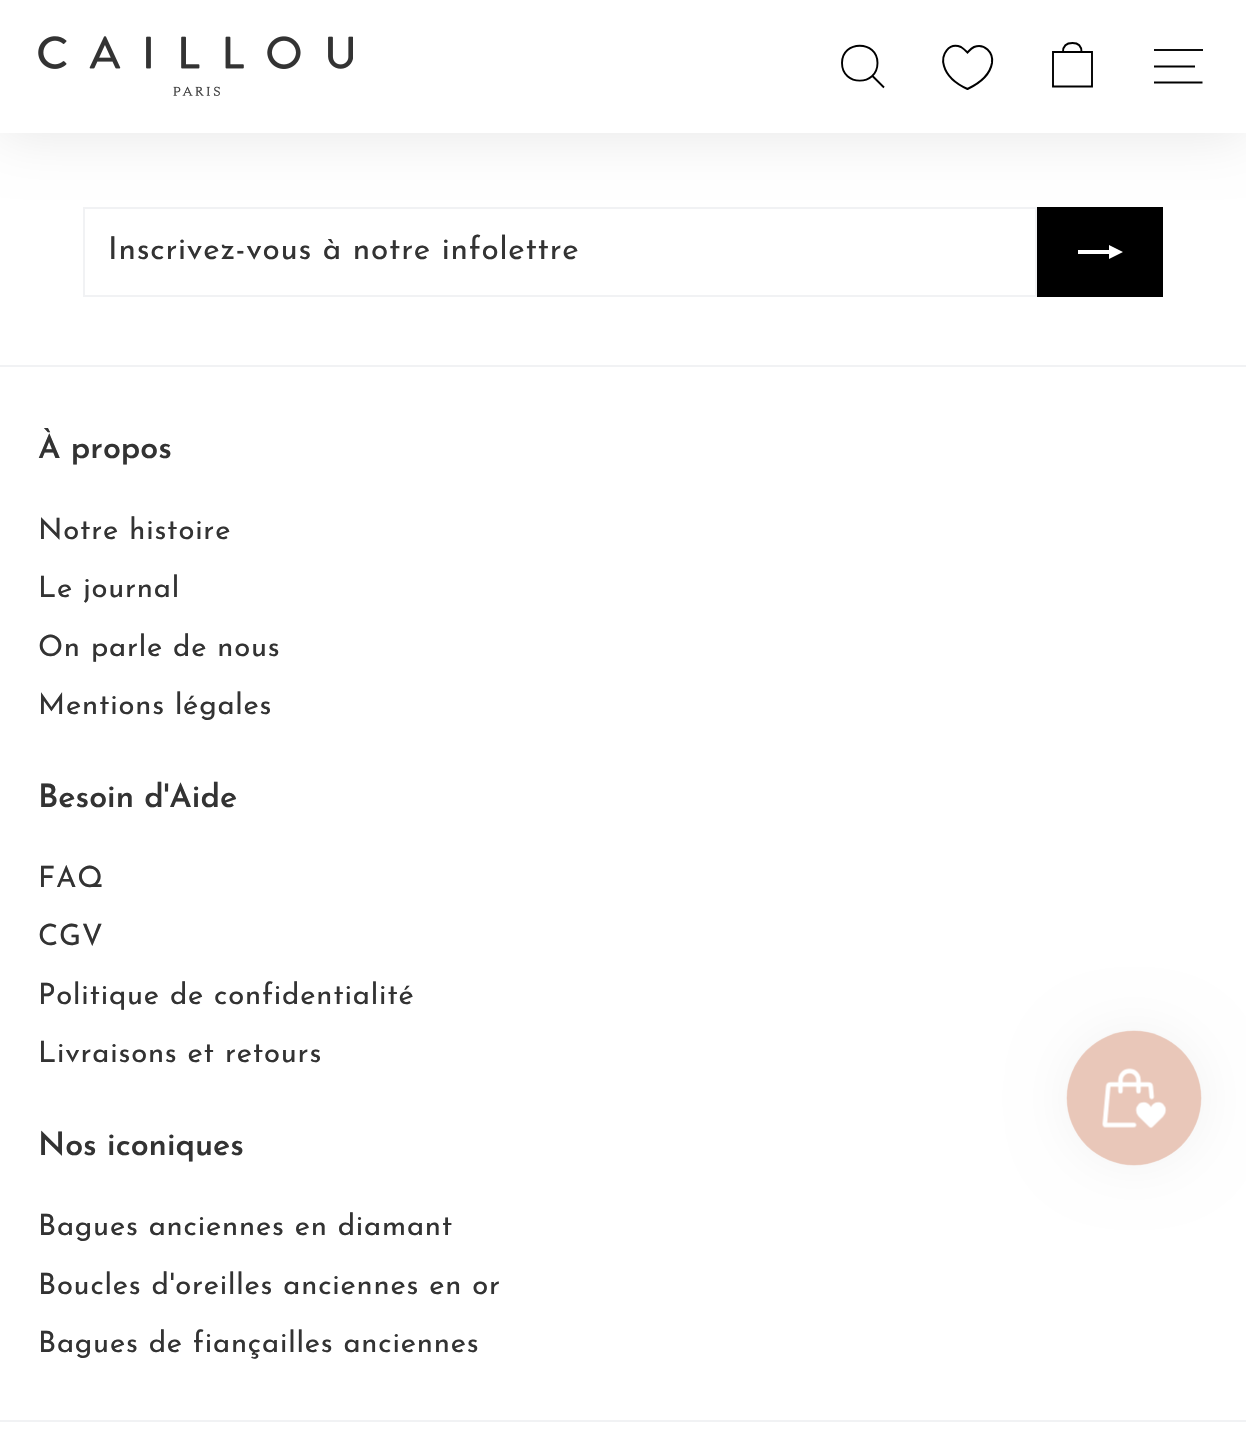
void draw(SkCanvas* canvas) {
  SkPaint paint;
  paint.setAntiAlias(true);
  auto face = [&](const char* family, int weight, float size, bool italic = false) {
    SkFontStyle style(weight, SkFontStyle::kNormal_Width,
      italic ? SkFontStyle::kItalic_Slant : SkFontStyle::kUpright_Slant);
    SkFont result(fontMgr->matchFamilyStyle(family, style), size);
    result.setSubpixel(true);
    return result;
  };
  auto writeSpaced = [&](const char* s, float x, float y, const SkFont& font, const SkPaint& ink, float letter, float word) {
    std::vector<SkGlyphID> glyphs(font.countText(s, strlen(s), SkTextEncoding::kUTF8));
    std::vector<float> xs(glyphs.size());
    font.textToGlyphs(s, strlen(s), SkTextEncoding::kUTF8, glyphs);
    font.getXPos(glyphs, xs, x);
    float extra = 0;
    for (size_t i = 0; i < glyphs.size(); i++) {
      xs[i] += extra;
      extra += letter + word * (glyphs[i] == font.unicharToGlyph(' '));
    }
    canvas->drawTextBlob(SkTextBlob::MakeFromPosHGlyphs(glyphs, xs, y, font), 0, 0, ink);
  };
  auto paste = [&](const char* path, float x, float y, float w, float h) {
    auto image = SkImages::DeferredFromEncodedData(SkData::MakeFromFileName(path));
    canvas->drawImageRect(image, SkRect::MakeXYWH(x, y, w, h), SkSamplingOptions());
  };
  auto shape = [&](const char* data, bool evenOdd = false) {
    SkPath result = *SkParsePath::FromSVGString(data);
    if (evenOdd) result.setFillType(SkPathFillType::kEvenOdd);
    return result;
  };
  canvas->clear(0xffffffff);
  paint.setStroke(true);
  paint.setStrokeWidth(2);
  paint.setColor(0xfff1f2f4);
  canvas->drawRect(SkRect::MakeXYWH(84, 208, 952, 88), paint);
  paint.setStroke(false);
  paint.setColor(0xff000000);
  canvas->drawRect(SkRect::MakeXYWH(1037, 207, 126, 90), paint);
  paint.setColor(0x1a000000);
  paint.setMaskFilter(SkMaskFilter::MakeBlur(kNormal_SkBlurStyle, 28));
  canvas->drawRect(SkRect::MakeXYWH(0, 0, 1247, 133), paint);
  paint.setMaskFilter(nullptr);
  paint.setColor(0xffffffff);
  canvas->drawRect(SkRect::MakeXYWH(0, 0, 1246, 133), paint);
  paste("img/1.png", 38, 36, 315, 60);
  paint.setStroke(true);
  paint.setStrokeWidth(1.9f);
  paint.setColor(0xff000000);
  canvas->drawPath(shape("M877.5 63C877.5 86.5 842 86.5 842 63C842 40 877.5 40 877.5 63M884 87.5L872.5 76"), paint);
  paint.setStrokeWidth(2);
  canvas->drawPath(shape("M967.5 89C957.5 84.5 947 76.5 944 66C940.5 54.5 949 42 961 47C963.5 48.5 965.5 50.5 967.5 52.5C969.5 50.5 971 48.5 974 47C984.5 43 993.5 52.5 992 63C990 75 978 84 967.5 89Z"), paint);
  paint.setStrokeWidth(1.9f);
  canvas->drawPath(shape("M1063 52C1063 45 1067.5 43 1072.5 43C1077.5 43 1081.5 45 1081.5 52M1053 52H1092V86.5H1053Z"), paint);
  paint.setStroke(false);
  paint.setColor(0xff0d0d0d);
  canvas->drawRect(SkRect::MakeXYWH(1154, 49, 49, 2), paint);
  paint.setStroke(true);
  paint.setColor(0xff000000);
  canvas->drawPath(shape("M1154 66.5H1195M1154 82.5H1202.5"), paint);
  paint.setStroke(false);
  paint.setColor(0xffffffff);
  canvas->drawPath(shape("M1078 254V250H1109V245L1123 252L1109 259V254Z"), paint);
  paint.setColor(0xfff1f2f4);
  canvas->drawRect(SkRect::MakeXYWH(0, 365, 1246, 2), paint);
  canvas->drawRect(SkRect::MakeXYWH(0, 1420, 1246, 2), paint);
  paint.setColor(0x0d000000);
  paint.setMaskFilter(SkMaskFilter::MakeBlur(kNormal_SkBlurStyle, 28));
  canvas->drawRoundRect(SkRect::MakeXYWH(1067, 1031, 135, 135), 67.5f, 67.5f, paint);
  paint.setMaskFilter(nullptr);
  paste("img/2.png", 1066, 1030, 136, 136);
  auto f0 = face("Josefin Sans", 400, 31.5f);
  paint.setColor(0xff333333);
  writeSpaced("Inscrivez-vous à notre infolettre", 108, 259, f0, paint, 0.8f, 0);
  auto f1 = face("josefin sans", 600, 32.25f);
  canvas->drawString("À propos", 38, 458, f1, paint);
  auto f2 = face("Josefin Sans", 400, 29.25f);
  {
    const struct { const char* s; float x, y; } items[] = {
      {"Notre histoire", 38, 539},
      {"Le journal", 38, 597},
      {"On parle de nous", 38, 656},
      {"Mentions légales", 38, 714},
    };
    for (auto [s, x, y] : items) {
      writeSpaced(s, x, y, f2, paint, 0.8f, 0);
    }
  }
  canvas->drawString("Besoin d'Aide", 38, 807, f1, paint);
  {
    const struct { const char* s; float x, y; } items[] = {
      {"FAQ", 38, 887},
      {"CGV", 38, 945},
      {"Politique de confidentialité", 38, 1004},
      {"Livraisons et retours", 38, 1062},
    };
    for (auto [s, x, y] : items) {
      writeSpaced(s, x, y, f2, paint, 0.8f, 0);
    }
  }
  canvas->drawString("Nos iconiques", 38, 1155, f1, paint);
  {
    const struct { const char* s; float x, y; } items[] = {
      {"Bagues anciennes en diamant", 38, 1235},
      {"Boucles d'oreilles anciennes en or", 38, 1294},
      {"Bagues de fiançailles anciennes", 38, 1352},
    };
    for (auto [s, x, y] : items) {
      writeSpaced(s, x, y, f2, paint, 0.8f, 0);
    }
  }
}
